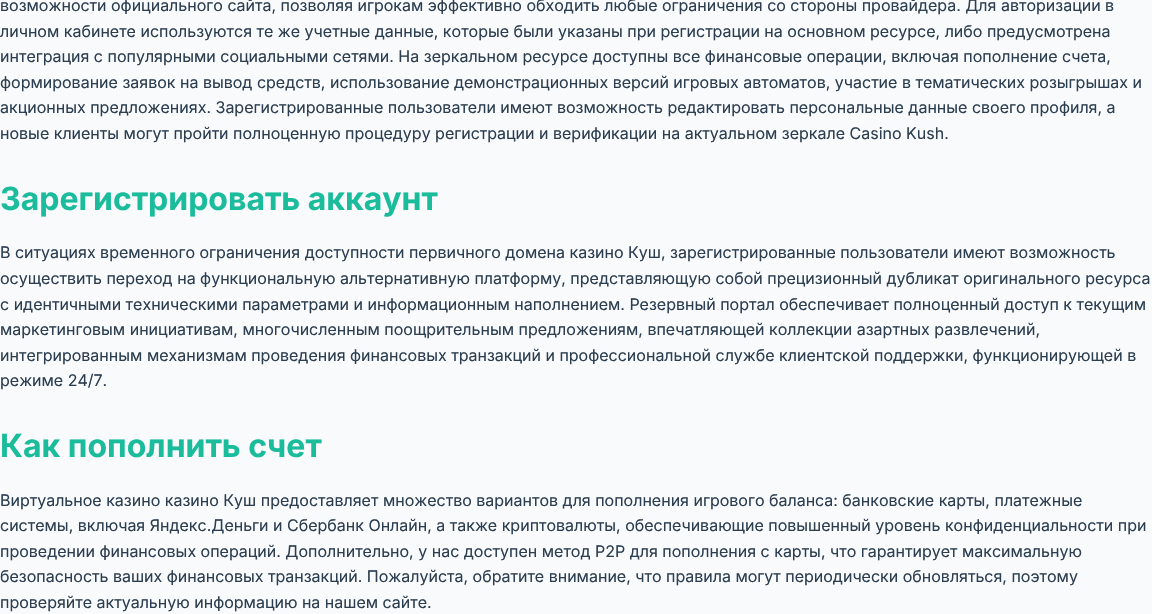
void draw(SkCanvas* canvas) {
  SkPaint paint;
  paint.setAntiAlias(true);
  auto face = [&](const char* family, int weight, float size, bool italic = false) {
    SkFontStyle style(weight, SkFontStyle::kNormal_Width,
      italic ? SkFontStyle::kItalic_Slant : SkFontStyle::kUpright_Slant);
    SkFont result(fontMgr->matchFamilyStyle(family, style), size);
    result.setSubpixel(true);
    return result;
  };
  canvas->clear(0xfff8fafc);
  auto f0 = face("Inter", 400, 16);
  paint.setColor(0xff2c3e50);
  {
    const struct { const char* s; float x, y; } items[] = {
      {"возможности официального сайта, позволяя игрокам эффективно обходить любые ограничения со стороны провайдера. Для авторизации в", 0, 11},
      {"личном кабинете используются те же учетные данные, которые были указаны при регистрации на основном ресурсе, либо предусмотрена", 0, 37},
      {"интеграция с популярными социальными сетями. На зеркальном ресурсе доступны все финансовые операции, включая пополнение счета,", 0, 62},
      {"формирование заявок на вывод средств, использование демонстрационных версий игровых автоматов, участие в тематических розыгрышах и", 0, 88},
      {"акционных предложениях. Зарегистрированные пользователи имеют возможность редактировать персональные данные своего профиля, а", 0, 113},
      {"новые клиенты могут пройти полноценную процедуру регистрации и верификации на актуальном зеркале Casino Kush.", 0, 139},
    };
    for (auto [s, x, y] : items) {
      canvas->drawString(s, x, y, f0, paint);
    }
  }
  auto f1 = face("Inter", 700, 32);
  paint.setColor(0xff1abc9c);
  canvas->drawString("Зарегистрировать аккаунт", 0, 210, f1, paint);
  paint.setColor(0xff2c3e50);
  {
    const struct { const char* s; float x, y; } items[] = {
      {"В ситуациях временного ограничения доступности первичного домена казино Куш, зарегистрированные пользователи имеют возможность", 0, 258},
      {"осуществить переход на функциональную альтернативную платформу, представляющую собой прецизионный дубликат оригинального ресурса", 0, 284},
      {"с идентичными техническими параметрами и информационным наполнением. Резервный портал обеспечивает полноценный доступ к текущим", 0, 310},
      {"маркетинговым инициативам, многочисленным поощрительным предложениям, впечатляющей коллекции азартных развлечений,", 0, 335},
      {"интегрированным механизмам проведения финансовых транзакций и профессиональной службе клиентской поддержки, функционирующей в", 0, 361},
      {"режиме 24/7.", 0, 386},
    };
    for (auto [s, x, y] : items) {
      canvas->drawString(s, x, y, f0, paint);
    }
  }
  paint.setColor(0xff1abc9c);
  canvas->drawString("Как пополнить счет", 0, 457, f1, paint);
  paint.setColor(0xff2c3e50);
  {
    const struct { const char* s; float x, y; } items[] = {
      {"Виртуальное казино казино Куш предоставляет множество вариантов для пополнения игрового баланса: банковские карты, платежные", 0, 506},
      {"системы, включая Яндекс.Деньги и Сбербанк Онлайн, а также криптовалюты, обеспечивающие повышенный уровень конфиденциальности при", 0, 531},
      {"проведении финансовых операций. Дополнительно, у нас доступен метод P2P для пополнения с карты, что гарантирует максимальную", 0, 557},
      {"безопасность ваших финансовых транзакций. Пожалуйста, обратите внимание, что правила могут периодически обновляться, поэтому", 0, 582},
      {"проверяйте актуальную информацию на нашем сайте.", 0, 608},
    };
    for (auto [s, x, y] : items) {
      canvas->drawString(s, x, y, f0, paint);
    }
  }
}
